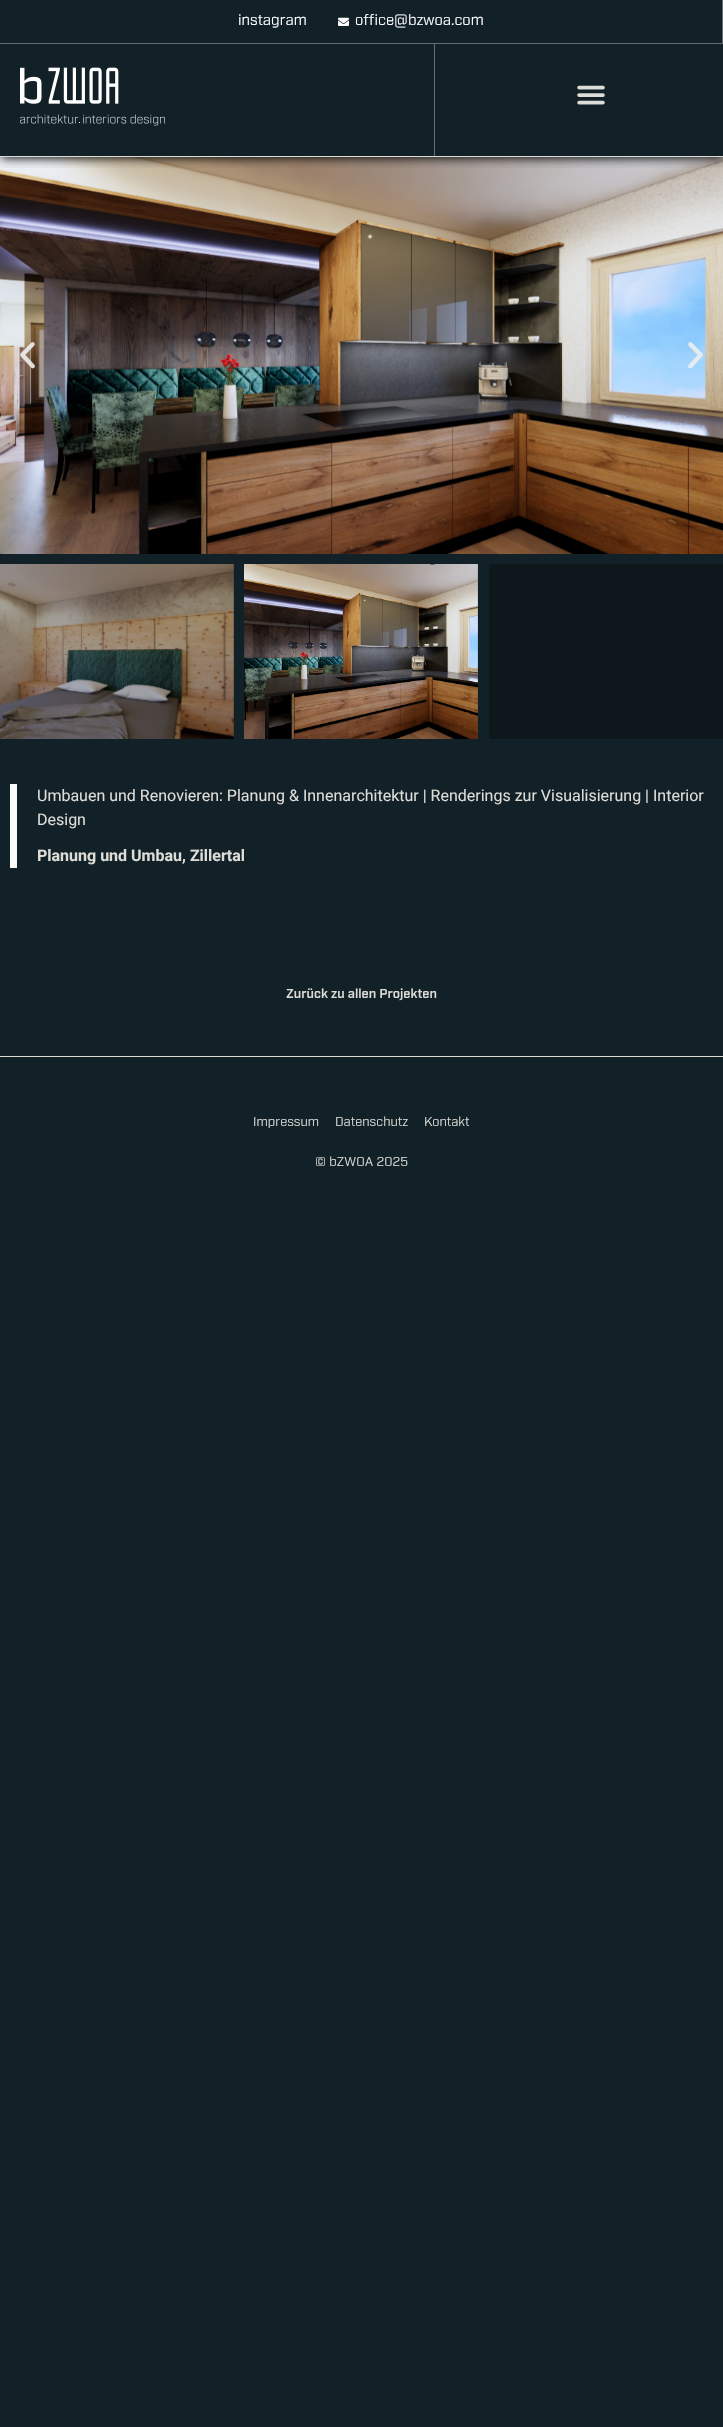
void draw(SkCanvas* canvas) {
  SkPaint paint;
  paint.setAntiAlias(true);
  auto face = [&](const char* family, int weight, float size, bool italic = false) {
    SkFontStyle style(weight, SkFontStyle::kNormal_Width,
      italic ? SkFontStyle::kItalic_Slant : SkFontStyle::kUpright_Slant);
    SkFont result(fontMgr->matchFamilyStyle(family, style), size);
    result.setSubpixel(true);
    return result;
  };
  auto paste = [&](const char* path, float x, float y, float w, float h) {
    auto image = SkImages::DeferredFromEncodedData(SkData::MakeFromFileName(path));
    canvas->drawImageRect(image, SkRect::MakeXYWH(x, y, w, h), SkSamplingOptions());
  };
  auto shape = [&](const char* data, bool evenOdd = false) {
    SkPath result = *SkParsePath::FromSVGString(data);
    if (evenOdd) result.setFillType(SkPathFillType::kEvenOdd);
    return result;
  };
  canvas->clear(0xff122128);
  paste("img/4.png", 0, 157, 723, 397);
  canvas->save();
  canvas->clipRect(SkRect::MakeXYWH(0, 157, 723, 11));
  paint.setColor(0xff000000);
  paint.setMaskFilter(SkMaskFilter::MakeBlur(kNormal_SkBlurStyle, 5));
  canvas->drawRect(SkRect::MakeXYWH(1, 1, 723, 157), paint);
  paint.setMaskFilter(nullptr);
  canvas->restore();
  paint.setColor(0xffdddcd7);
  canvas->drawRect(SkRect::MakeXYWH(0, 156, 723, 1), paint);
  paint.setColor(0xff656f73);
  canvas->drawPath(shape("M723 0V44L722 43V0Z"), paint);
  paint.setColor(0x59ffffff);
  canvas->drawPath(shape("M723 44H0V43H722Z"), paint);
  paste("img/1.png", 338, 17, 11, 9);
  paste("img/2.png", 20, 67, 145, 59);
  paint.setColor(0xff656f73);
  canvas->drawRect(SkRect::MakeXYWH(434, 44, 1, 112), paint);
  paste("img/3.png", 577, 85, 28, 20);
  paste("img/5.png", 20, 342, 15, 27);
  paste("img/6.png", 688, 342, 15, 27);
  paste("img/7.png", 0, 564, 234, 175);
  paste("img/8.png", 244, 564, 234, 175);
  {
    const struct { float x, y, w, h; SkColor color; } items[] = {
      {489, 564, 234, 175, 0xff0d171c},
      {10, 784, 7, 84, 0xfff9fafa},
      {0, 1056, 723, 1, 0xffdddcd7},
    };
    for (auto [x, y, w, h, color] : items) {
      paint.setColor(color);
      canvas->drawRect(SkRect::MakeXYWH(x, y, w, h), paint);
    }
  }
  auto f0 = face("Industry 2", 400, 15);
  paint.setColor(0xffffffff);
  canvas->drawString("instagram", 238, 25, f0, paint);
  canvas->drawString("office@bzwoa.com", 355, 25, f0, paint);
  auto f1 = face("Roboto", 400, 16);
  paint.setColor(0xffdddcd7);
  canvas->drawString("Umbauen und Renovieren: Planung & Innenarchitektur | Renderings zur Visualisierung | Interior", 37, 801, f1, paint);
  canvas->drawString("Design", 37, 825, f1, paint);
  auto f2 = face("Roboto", 700, 16);
  canvas->drawString("Planung und Umbau, Zillertal", 37, 861, f2, paint);
  auto f3 = face("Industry", 400, 13);
  canvas->drawString("Zurück zu allen Projekten", 286, 998, f3, paint);
  auto f4 = face("Industry 2", 400, 13);
  {
    const struct { const char* s; float x, y; } items[] = {
      {"Impressum", 253, 1126},
      {"Datenschutz", 335, 1126},
      {"Kontakt", 424, 1126},
      {"© bZWOA 2025", 315, 1166},
    };
    for (auto [s, x, y] : items) {
      canvas->drawString(s, x, y, f4, paint);
    }
  }
}
